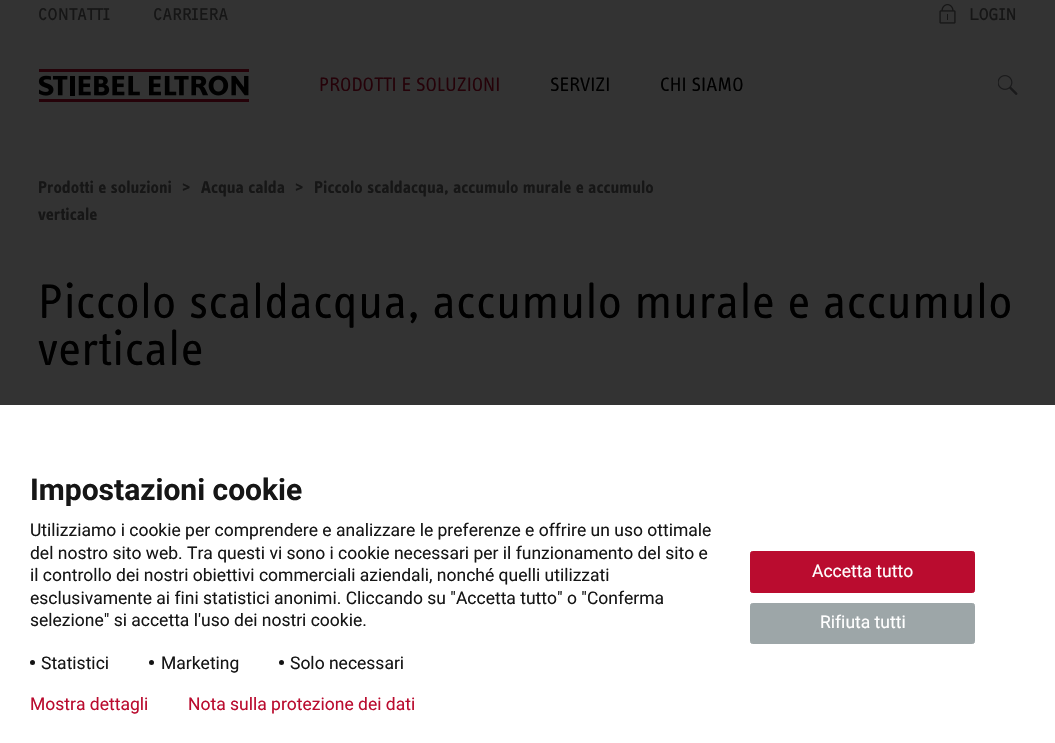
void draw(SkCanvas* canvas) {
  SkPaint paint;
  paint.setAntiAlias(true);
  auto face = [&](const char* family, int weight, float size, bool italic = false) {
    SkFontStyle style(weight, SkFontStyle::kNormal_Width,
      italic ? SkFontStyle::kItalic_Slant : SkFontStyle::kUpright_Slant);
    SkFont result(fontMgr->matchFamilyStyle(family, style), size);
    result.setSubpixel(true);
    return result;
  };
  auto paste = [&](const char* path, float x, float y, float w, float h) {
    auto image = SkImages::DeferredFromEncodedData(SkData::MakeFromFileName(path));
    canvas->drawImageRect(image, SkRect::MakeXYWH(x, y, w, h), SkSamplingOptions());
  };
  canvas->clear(0xff333333);
  paste("img/1.png", 939, 4, 17, 20);
  paste("img/2.png", 38, 69, 211, 33);
  paste("img/3.png", 998, 75, 20, 20);
  paint.setColor(0xffffffff);
  canvas->drawRect(SkRect::MakeXYWH(0, 405, 1055, 338), paint);
  paint.setColor(0xff131313);
  canvas->drawCircle(32.5f, 662.5f, 2.5f, paint);
  canvas->drawCircle(151.5f, 662.5f, 2.5f, paint);
  canvas->drawCircle(281.5f, 662.5f, 2.5f, paint);
  paint.setColor(0xffba0c2f);
  canvas->drawRoundRect(SkRect::MakeXYWH(750.5f, 551.5f, 224, 41), 2, 2, paint);
  paint.setStroke(true);
  paint.setStrokeWidth(1);
  canvas->drawRoundRect(SkRect::MakeXYWH(750.5f, 551.5f, 224, 41), 2, 2, paint);
  paint.setStroke(false);
  paint.setColor(0xff9da6a8);
  canvas->drawRoundRect(SkRect::MakeXYWH(750.5f, 603.5f, 224, 40), 2, 2, paint);
  paint.setStroke(true);
  canvas->drawRoundRect(SkRect::MakeXYWH(750.5f, 603.5f, 224, 40), 2, 2, paint);
  auto f0 = face("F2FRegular", 400, 17.5f);
  paint.setStroke(false);
  paint.setColor(0xff161616);
  {
    const struct { const char* s; float x, y; } items[] = {
      {"CONTATTI", 38, 20},
      {"CARRIERA", 153, 20},
      {"LOGIN", 969, 20},
    };
    for (auto [s, x, y] : items) {
      canvas->drawString(s, x, y, f0, paint);
    }
  }
  auto f1 = face("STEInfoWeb", 400, 20);
  paint.setColor(0xff250209);
  canvas->drawString("PRODOTTI E SOLUZIONI", 319, 91, f1, paint);
  paint.setColor(0xff000000);
  canvas->drawString("SERVIZI", 550, 91, f1, paint);
  canvas->drawString("CHI SIAMO", 660, 91, f1, paint);
  auto f2 = face("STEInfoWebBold", 700, 17.5f);
  paint.setColor(0xff161616);
  {
    const struct { const char* s; float x, y; } items[] = {
      {"Prodotti e soluzioni", 38, 193},
      {">", 182, 193},
      {"Acqua calda", 201, 193},
      {">", 295, 193},
      {"Piccolo scaldacqua, accumulo murale e accumulo", 314, 193},
      {"verticale", 38, 220},
    };
    for (auto [s, x, y] : items) {
      canvas->drawString(s, x, y, f2, paint);
    }
  }
  auto f3 = face("STEInfoWeb", 400, 50);
  paint.setColor(0xff000000);
  canvas->drawString("Piccolo scaldacqua, accumulo murale e accumulo", 38, 318, f3, paint);
  canvas->drawString("verticale", 38, 365, f3, paint);
  auto f4 = face("Roboto", 700, 30);
  paint.setColor(0xff161616);
  canvas->drawString("Impostazioni cookie", 30, 500, f4, paint);
  auto f5 = face("Roboto", 400, 17.5f);
  {
    const struct { const char* s; float x, y; } items[] = {
      {"Utilizziamo i cookie per comprendere e analizzare le preferenze e offrire un uso ottimale", 30, 536},
      {"del nostro sito web. Tra questi vi sono i cookie necessari per il funzionamento del sito e", 30, 559},
      {"il controllo dei nostri obiettivi commerciali aziendali, nonché quelli utilizzati", 30, 581},
      {"esclusivamente ai fini statistici anonimi. Cliccando su \"Accetta tutto\" o \"Conferma", 30, 604},
      {"selezione\" si accetta l'uso dei nostri cookie.", 30, 626},
      {"Statistici", 41, 669},
      {"Marketing", 161, 669},
      {"Solo necessari", 290, 669},
    };
    for (auto [s, x, y] : items) {
      canvas->drawString(s, x, y, f5, paint);
    }
  }
  paint.setColor(0xffffffff);
  canvas->drawString("Accetta tutto", 812, 577, f5, paint);
  canvas->drawString("Rifiuta tutti", 820, 628, f5, paint);
  paint.setColor(0xffba0c2f);
  canvas->drawString("Mostra dettagli", 30, 710, f5, paint);
  canvas->drawString("Nota sulla protezione dei dati", 188, 710, f5, paint);
}
